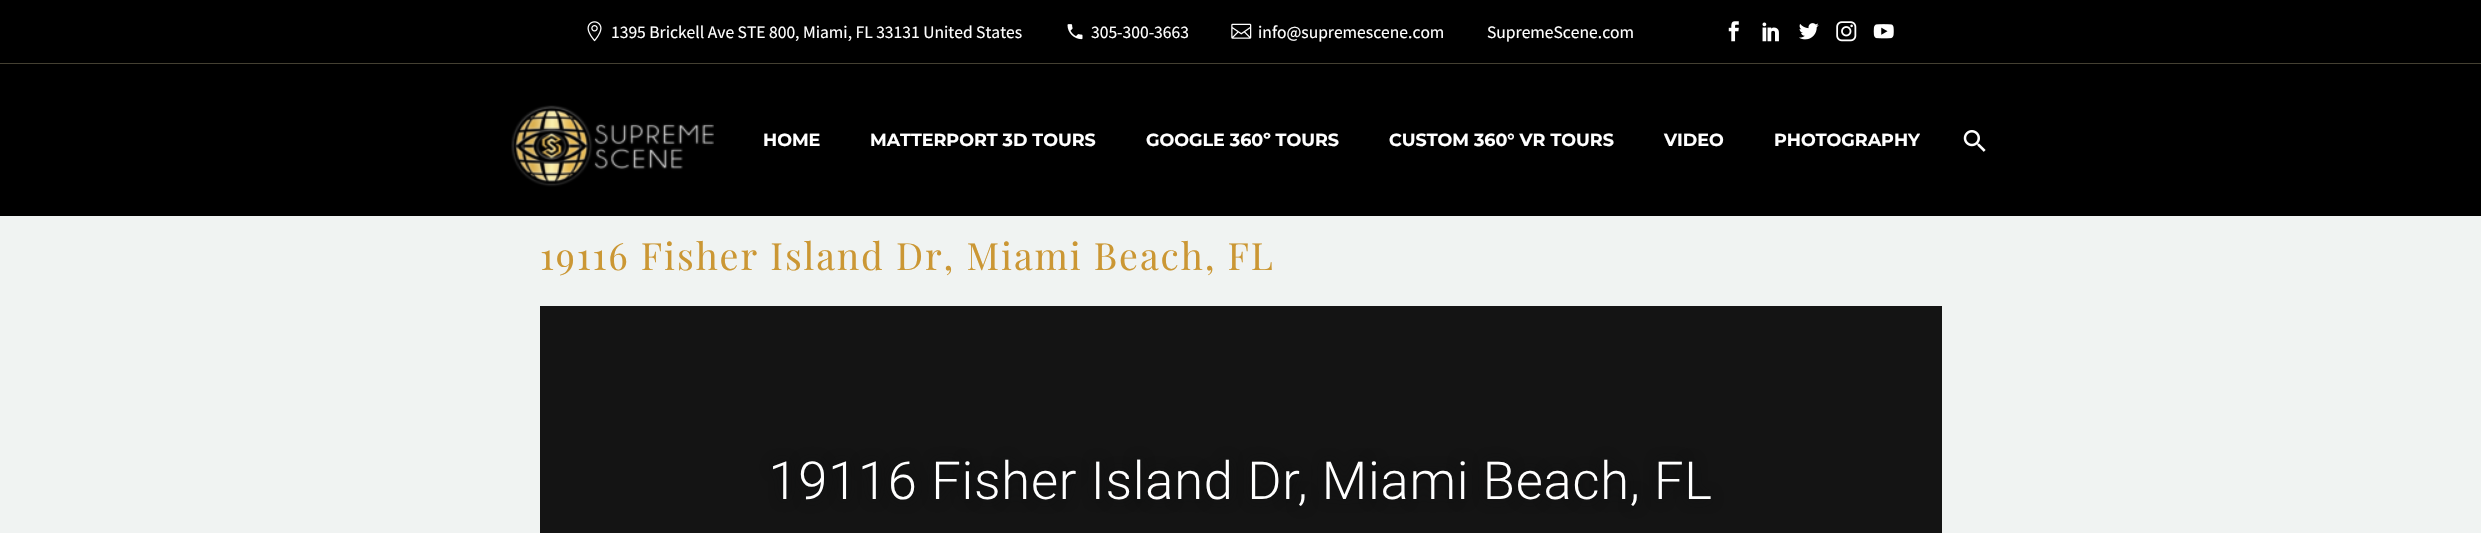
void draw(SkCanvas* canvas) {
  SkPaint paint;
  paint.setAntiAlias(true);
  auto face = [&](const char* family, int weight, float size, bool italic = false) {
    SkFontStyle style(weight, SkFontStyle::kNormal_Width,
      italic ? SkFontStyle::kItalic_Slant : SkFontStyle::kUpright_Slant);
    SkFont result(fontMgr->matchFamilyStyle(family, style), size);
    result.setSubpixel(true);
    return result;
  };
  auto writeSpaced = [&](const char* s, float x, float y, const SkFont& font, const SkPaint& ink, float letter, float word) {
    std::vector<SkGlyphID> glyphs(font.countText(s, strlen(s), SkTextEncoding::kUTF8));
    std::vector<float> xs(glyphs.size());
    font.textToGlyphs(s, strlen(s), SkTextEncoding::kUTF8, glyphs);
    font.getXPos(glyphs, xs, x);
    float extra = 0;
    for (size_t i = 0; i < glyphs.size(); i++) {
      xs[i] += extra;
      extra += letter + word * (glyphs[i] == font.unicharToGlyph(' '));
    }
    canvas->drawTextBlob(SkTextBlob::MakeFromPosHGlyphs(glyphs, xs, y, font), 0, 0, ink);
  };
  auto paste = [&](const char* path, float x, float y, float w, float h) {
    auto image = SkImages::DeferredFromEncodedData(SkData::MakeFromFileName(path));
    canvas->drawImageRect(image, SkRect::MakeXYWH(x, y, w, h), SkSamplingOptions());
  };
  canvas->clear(0xfff0f3f2);
  paint.setColor(0xff000000);
  canvas->drawRect(SkRect::MakeXYWH(0, 0, 2481, 63), paint);
  paint.setColor(0xff444032);
  canvas->drawRect(SkRect::MakeXYWH(0, 63, 2481, 1), paint);
  paste("img/1.png", 587, 21, 15, 21);
  paste("img/2.png", 1067, 24, 16, 16);
  paste("img/3.png", 1231, 23, 21, 16);
  paste("img/4.png", 1728, 21, 11, 21);
  paste("img/5.png", 1762, 22, 17, 20);
  paste("img/6.png", 1799, 23, 20, 17);
  paste("img/7.png", 1836, 21, 21, 21);
  paste("img/8.png", 1873, 24, 21, 15);
  paint.setColor(0xff000000);
  canvas->drawRect(SkRect::MakeXYWH(0, 64, 2481, 152), paint);
  paste("img/9.png", 511, 105, 203, 82);
  paste("img/10.png", 1963, 130, 23, 22);
  paste("img/11.png", 540, 306, 1402, 227);
  auto f0 = face("Source Sans Pro", 400, 17.5f);
  paint.setColor(0xffffffff);
  {
    const struct { const char* s; float x, y; } items[] = {
      {"1395 Brickell Ave STE 800, Miami, FL 33131 United States", 611, 38},
      {"305-300-3663", 1091, 38},
      {"info@supremescene.com", 1258, 38},
      {"SupremeScene.com", 1487, 38},
    };
    for (auto [s, x, y] : items) {
      canvas->drawString(s, x, y, f0, paint);
    }
  }
  auto f1 = face("Montserrat", 700, 17.5f);
  {
    const struct { const char* s; float x, y; } items[] = {
      {"HOME", 763, 146},
      {"MATTERPORT 3D TOURS", 870, 146},
      {"GOOGLE 360º TOURS", 1146, 146},
      {"CUSTOM 360° VR TOURS", 1389, 146},
      {"VIDEO", 1664, 146},
      {"PHOTOGRAPHY", 1774, 146},
    };
    for (auto [s, x, y] : items) {
      canvas->drawString(s, x, y, f1, paint);
    }
  }
  auto f2 = face("Playfair Display", 400, 37.5f);
  paint.setColor(0xffcb9734);
  writeSpaced("19116 Fisher Island Dr, Miami Beach, FL", 540, 270, f2, paint, 1.9f, 0);
}
